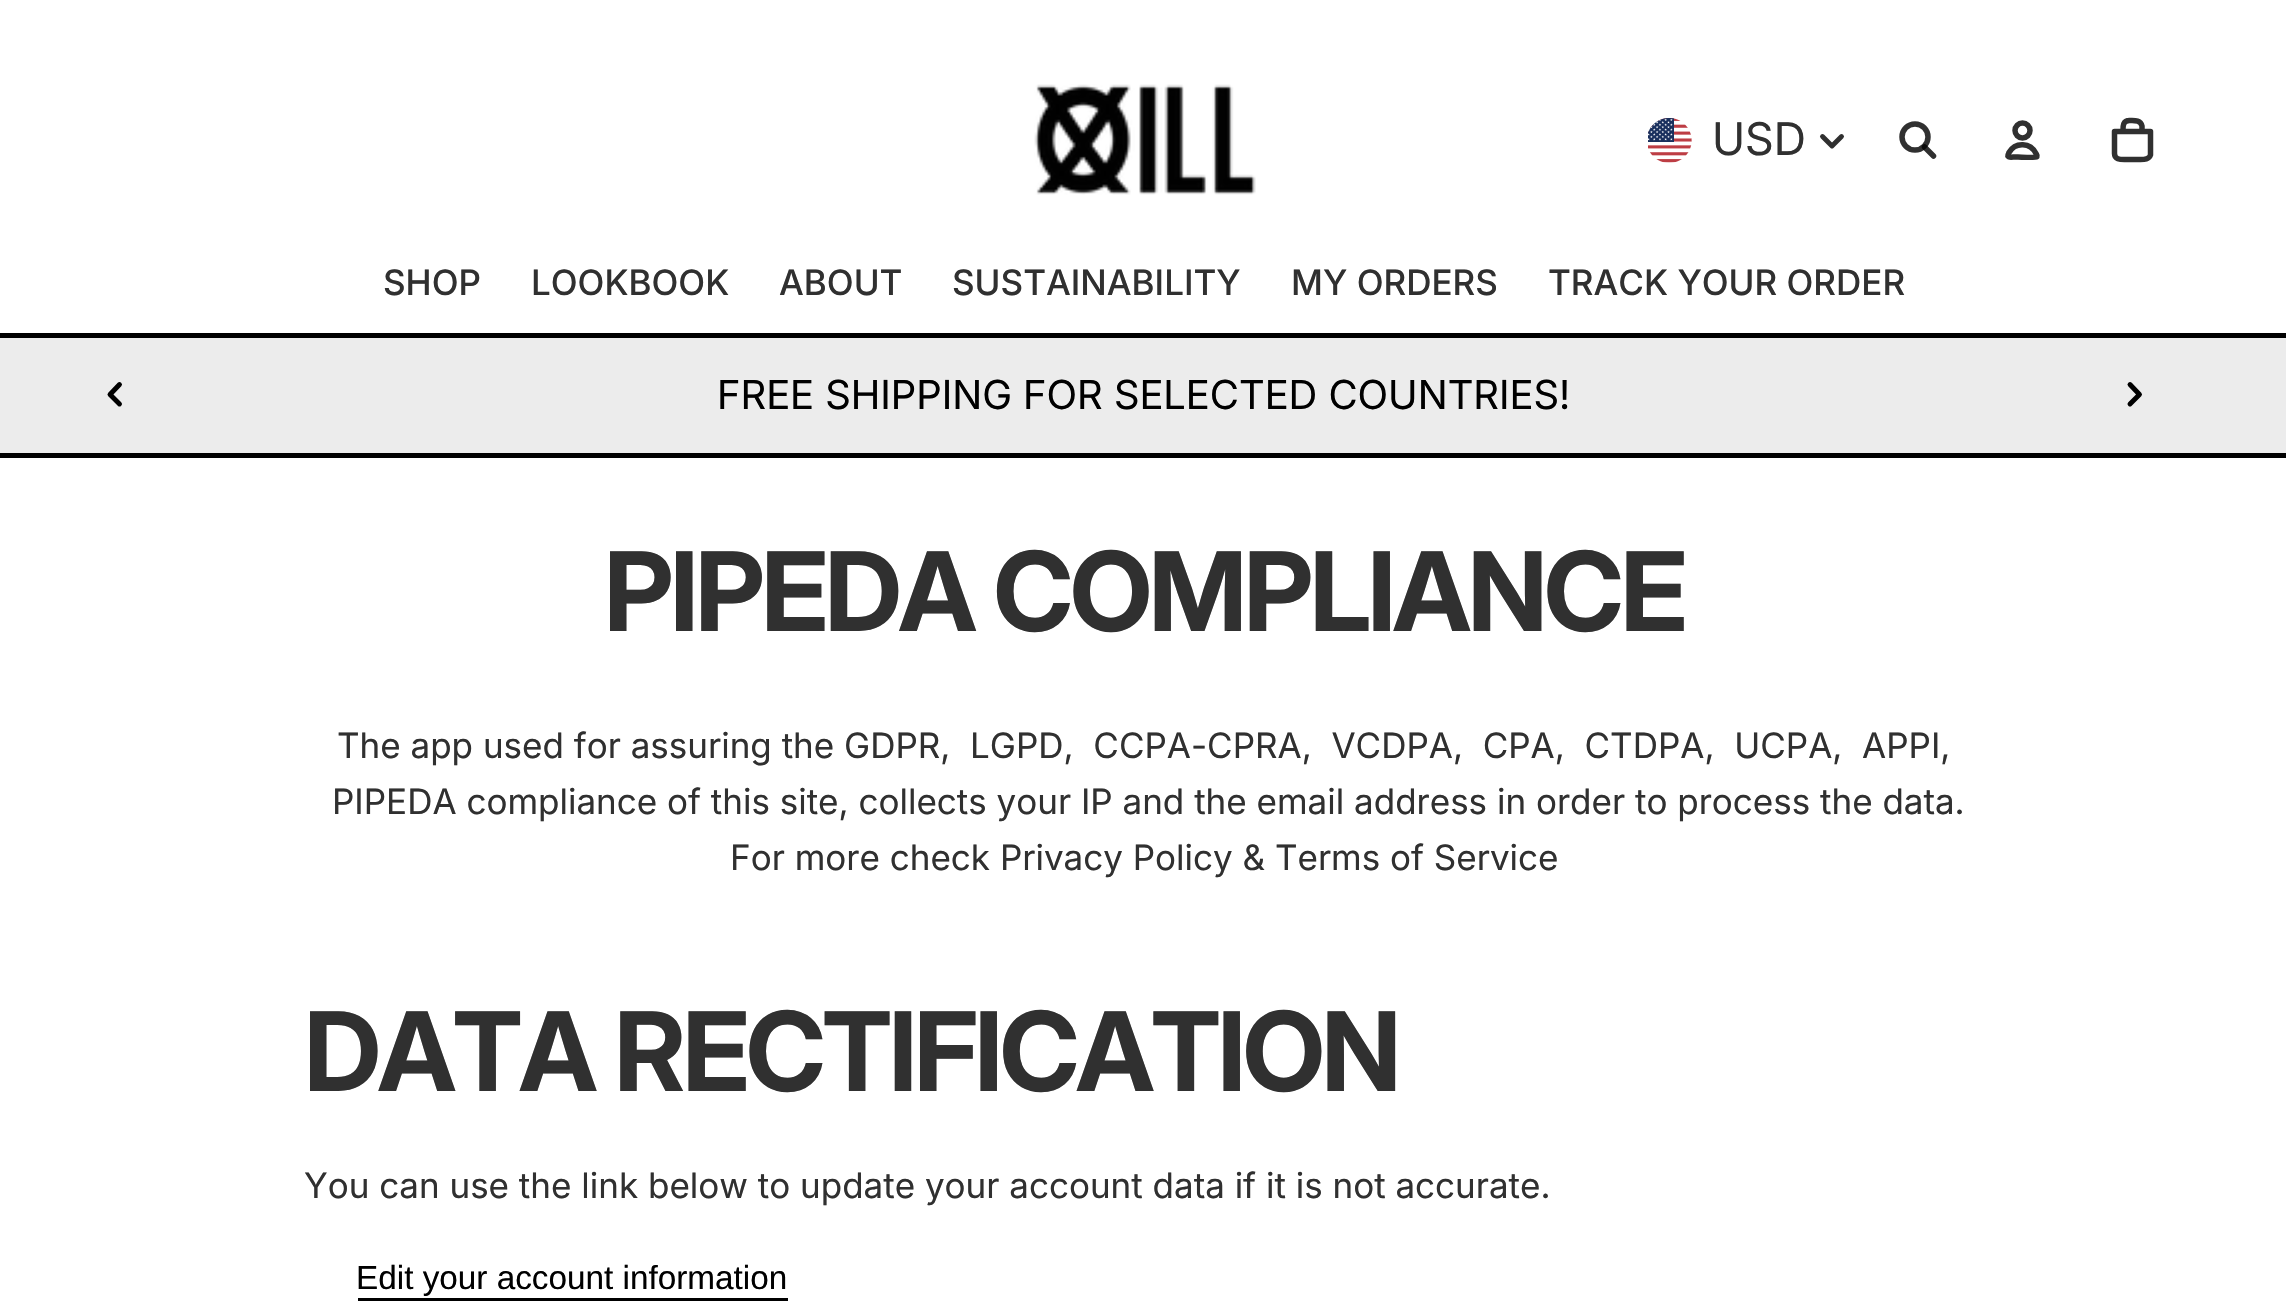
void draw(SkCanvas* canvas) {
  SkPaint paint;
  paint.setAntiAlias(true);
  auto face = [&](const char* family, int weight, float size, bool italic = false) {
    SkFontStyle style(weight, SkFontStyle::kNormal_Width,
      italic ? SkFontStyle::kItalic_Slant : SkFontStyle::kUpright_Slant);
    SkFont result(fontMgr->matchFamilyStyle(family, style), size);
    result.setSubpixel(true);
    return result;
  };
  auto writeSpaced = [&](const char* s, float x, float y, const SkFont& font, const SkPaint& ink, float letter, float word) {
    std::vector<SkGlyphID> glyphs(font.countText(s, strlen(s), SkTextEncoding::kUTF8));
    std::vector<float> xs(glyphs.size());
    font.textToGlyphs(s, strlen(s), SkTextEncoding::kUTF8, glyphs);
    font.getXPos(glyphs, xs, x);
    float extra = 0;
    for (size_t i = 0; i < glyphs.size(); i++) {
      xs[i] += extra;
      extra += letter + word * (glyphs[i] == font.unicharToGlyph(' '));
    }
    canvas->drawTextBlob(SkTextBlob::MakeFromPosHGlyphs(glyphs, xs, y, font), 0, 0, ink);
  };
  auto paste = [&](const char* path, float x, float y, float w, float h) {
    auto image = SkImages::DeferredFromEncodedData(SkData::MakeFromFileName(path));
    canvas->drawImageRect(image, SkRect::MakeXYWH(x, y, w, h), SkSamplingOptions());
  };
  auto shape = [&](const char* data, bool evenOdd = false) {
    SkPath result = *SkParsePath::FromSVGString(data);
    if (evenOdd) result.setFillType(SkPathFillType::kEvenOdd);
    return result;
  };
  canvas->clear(0xffffffff);
  paste("img/1.png", 1034, 84, 222, 111);
  paste("img/2.png", 1648, 118, 44, 45);
  paint.setStroke(true);
  paint.setStrokeWidth(4.9f);
  paint.setStrokeCap(SkPaint::kRound_Cap);
  paint.setStrokeJoin(SkPaint::kRound_Join);
  paint.setColor(0xff303030);
  canvas->drawPath(shape("M1841.5 136.5L1832 146L1822.5 136.5"), paint);
  paint.setStrokeWidth(5.5f);
  paint.setStrokeCap(SkPaint::kButt_Cap);
  paint.setStrokeJoin(SkPaint::kMiter_Join);
  canvas->drawCircle(1915, 137, 13, paint);
  paint.setStrokeCap(SkPaint::kRound_Cap);
  paint.setStrokeJoin(SkPaint::kRound_Join);
  paint.setColor(0xcf000000);
  canvas->drawPath(shape("M1924.5 147L1933.5 156"), paint);
  paint.setStrokeCap(SkPaint::kButt_Cap);
  paint.setStrokeJoin(SkPaint::kMiter_Join);
  paint.setColor(0xff303030);
  canvas->drawCircle(2022.5f, 130.5f, 7.5f, paint);
  paint.setStrokeCap(SkPaint::kRound_Cap);
  paint.setStrokeJoin(SkPaint::kRound_Join);
  canvas->drawPath(shape("M2009 152.5L2008 155C2007 158 2013 157 2014 157H2018C2020.5 157 2035.5 158 2036.5 157L2037 156.5C2037.5 155.5 2036.5 154.5 2036 153.5C2030.5 142.5 2015.5 141.5 2009 152.5"), paint);
  canvas->drawPath(shape("M2114.5 131.5H2150.5V155C2149 159.5 2144.5 159.5 2140.5 159.5H2124.5C2120 159.5 2114.5 159.5 2114.5 153.5ZM2129 120.5C2134 120.5 2140.5 119.5 2142 126V131.5H2123C2123 126.5 2122.5 120.5 2129.5 120.5"), paint);
  paint.setStroke(false);
  paint.setColor(0xff000000);
  canvas->drawRect(SkRect::MakeXYWH(0, 333, 2286, 5), paint);
  paint.setColor(0xffececec);
  canvas->drawRect(SkRect::MakeXYWH(0, 338, 2286, 115), paint);
  paint.setStroke(true);
  paint.setStrokeWidth(4.9f);
  paint.setColor(0xff000000);
  canvas->drawPath(shape("M119.5 384.5L110 394.5L119.5 404"), paint);
  canvas->drawPath(shape("M2130 384.5L2139.5 394.5L2130 404"), paint);
  paint.setStroke(false);
  canvas->drawRect(SkRect::MakeXYWH(0, 453, 2286, 5), paint);
  canvas->drawRect(SkRect::MakeXYWH(358, 1298, 430, 3), paint);
  auto f0 = face("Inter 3", 400, 45);
  paint.setColor(0xff303030);
  canvas->drawString("USD", 1712, 155, f0, paint);
  auto f1 = face("Inter", 500, 35);
  {
    const struct { const char* s; float x, y; } items[] = {
      {"SHOP", 383, 295},
      {"LOOKBOOK", 531, 295},
      {"ABOUT", 779, 295},
      {"SUSTAINABILITY", 952, 295},
      {"MY ORDERS", 1291, 295},
      {"TRACK YOUR ORDER", 1548, 295},
    };
    for (auto [s, x, y] : items) {
      canvas->drawString(s, x, y, f1, paint);
    }
  }
  auto f2 = face("Inter", 400, 40);
  paint.setColor(0xff000000);
  canvas->drawString("FREE SHIPPING FOR SELECTED COUNTRIES!", 717, 409, f2, paint);
  auto f3 = face("Inter", 700, 109.75f);
  paint.setColor(0xff303030);
  writeSpaced("PIPEDA COMPLIANCE", 604, 631, f3, paint, -3.25f, 0);
  auto f4 = face("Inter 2", 400, 35);
  {
    const struct { const char* s; float x, y; } items[] = {
      {"The app used for assuring the GDPR,  LGPD,  CCPA-CPRA,  VCDPA,  CPA,  CTDPA,  UCPA,  APPI,", 337, 758},
      {"PIPEDA compliance of this site, collects your IP and the email address in order to process the data.", 332, 814},
      {"For more check Privacy Policy & Terms of Service", 730, 870},
    };
    for (auto [s, x, y] : items) {
      canvas->drawString(s, x, y, f4, paint);
    }
  }
  writeSpaced("DATA RECTIFICATION", 304, 1091, f3, paint, -3.25f, 0);
  canvas->drawString("You can use the link below to update your account data if it is not accurate.", 304, 1198, f4, paint);
  auto f5 = face("Liberation Sans", 400, 33.3f);
  paint.setColor(0xff000000);
  canvas->drawString("Edit your account information", 356, 1289, f5, paint);
}
